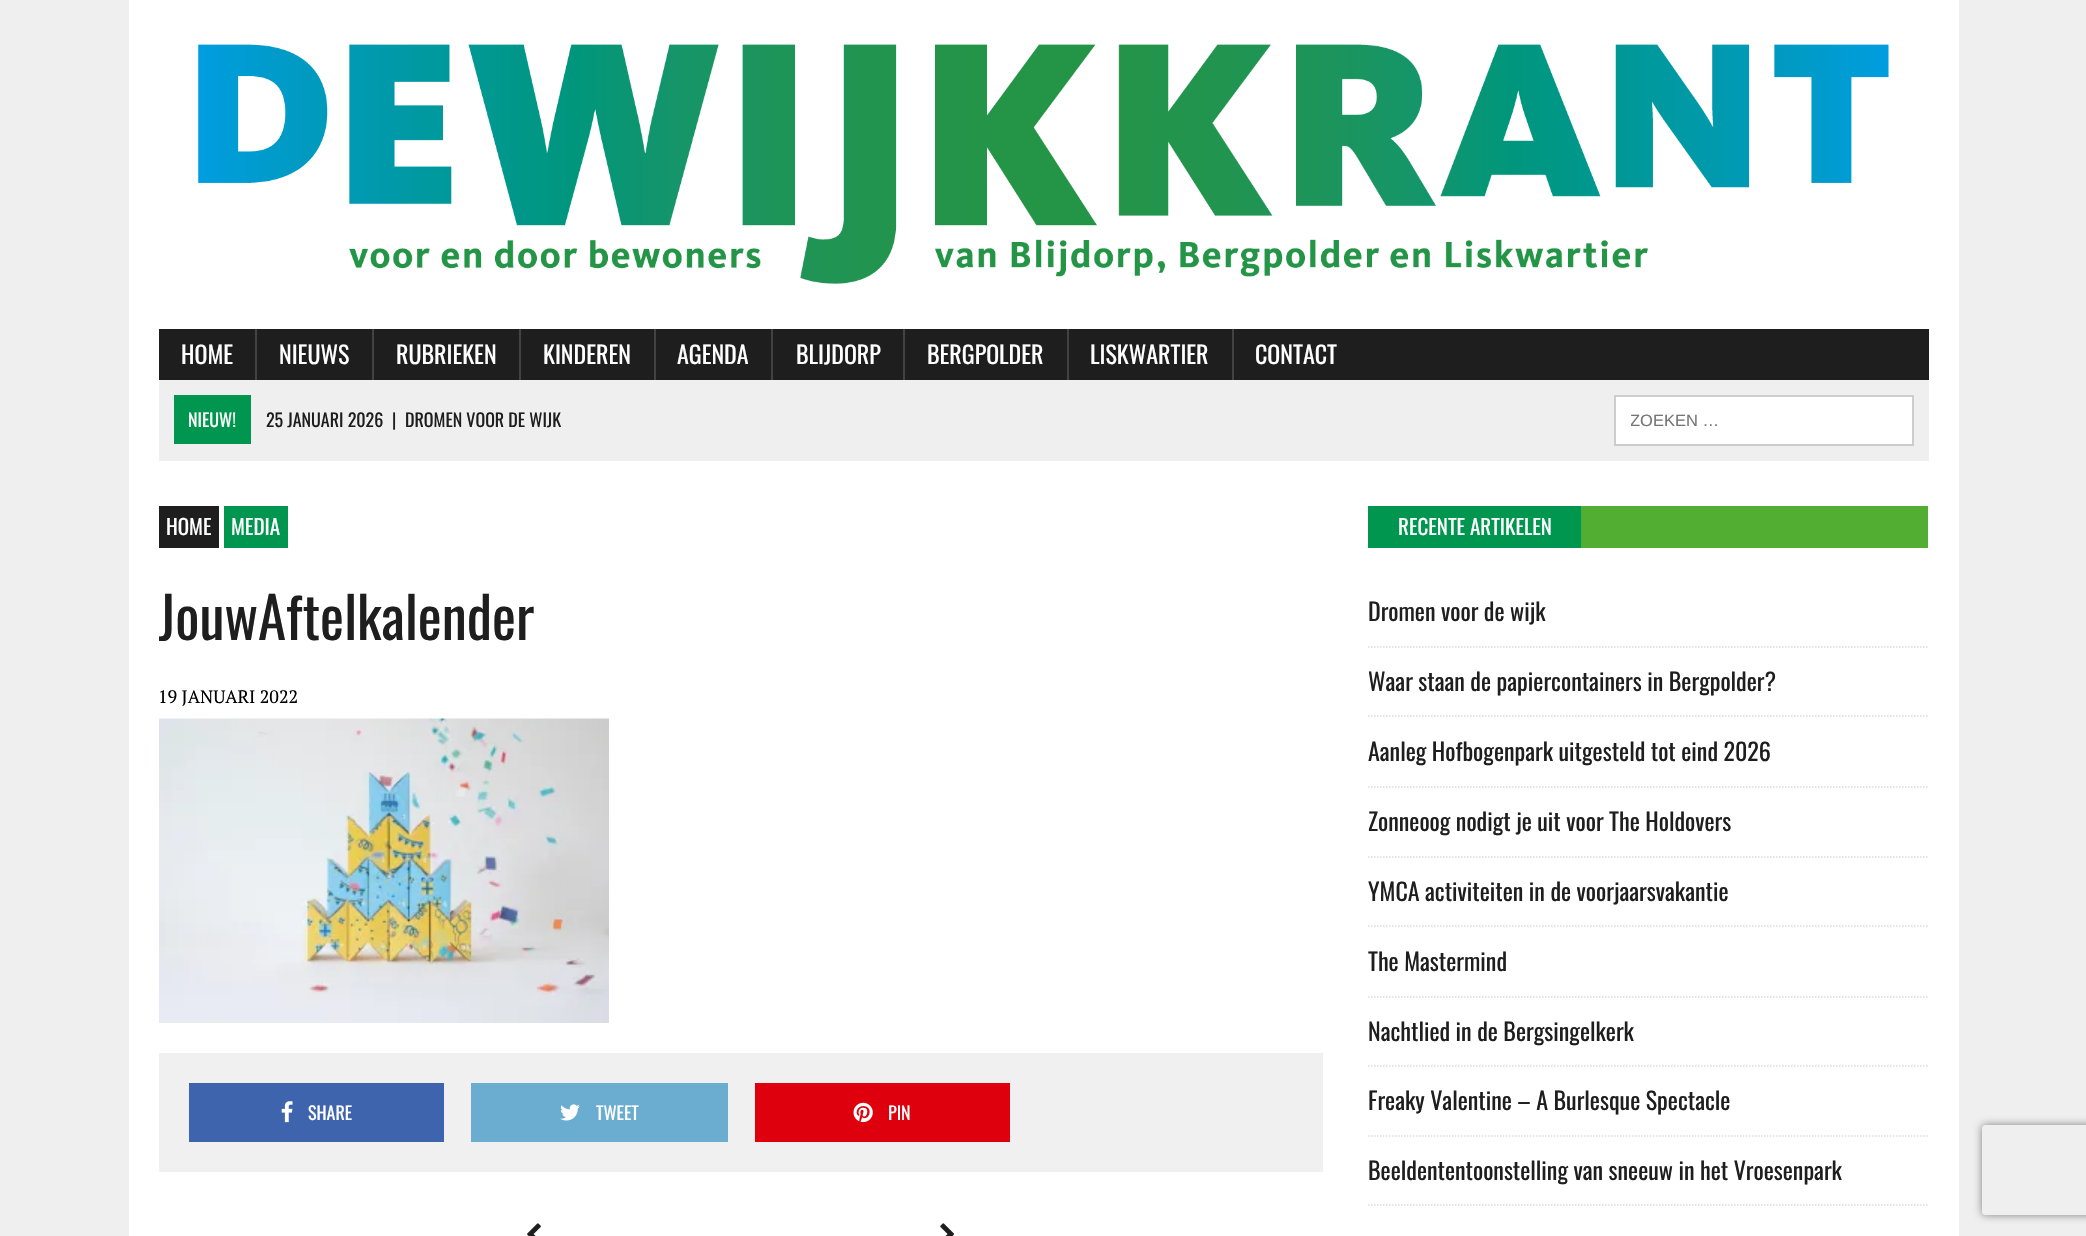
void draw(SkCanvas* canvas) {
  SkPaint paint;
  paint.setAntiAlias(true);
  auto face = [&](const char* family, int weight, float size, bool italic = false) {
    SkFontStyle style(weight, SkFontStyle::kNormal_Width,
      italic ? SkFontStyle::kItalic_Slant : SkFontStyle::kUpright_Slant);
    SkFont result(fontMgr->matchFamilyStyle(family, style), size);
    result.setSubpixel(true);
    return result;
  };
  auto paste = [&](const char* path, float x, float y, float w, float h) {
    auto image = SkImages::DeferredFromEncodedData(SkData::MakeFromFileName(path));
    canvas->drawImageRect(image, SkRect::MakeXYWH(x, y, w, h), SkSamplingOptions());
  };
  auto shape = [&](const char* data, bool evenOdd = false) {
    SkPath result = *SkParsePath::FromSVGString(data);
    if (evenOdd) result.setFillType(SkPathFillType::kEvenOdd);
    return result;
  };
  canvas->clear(0xffefefef);
  paint.setColor(0xffffffff);
  canvas->drawRect(SkRect::MakeXYWH(129, 0, 1830, 1236), paint);
  paste("img/1.png", 198, 44, 1691, 240);
  {
    const struct { float x, y, w, h; SkColor color; } items[] = {
      {159, 329, 1770, 51, 0xff1f1e1e},
      {255, 329, 2, 51, 0xff424242},
      {372, 329, 2, 51, 0xff424242},
      {519, 329, 2, 51, 0xff424242},
      {654, 329, 2, 51, 0xff424242},
      {771, 329, 2, 51, 0xff424242},
      {903, 329, 2, 51, 0xff424242},
      {1067, 329, 2, 51, 0xff424242},
      {1232, 329, 2, 51, 0xff424242},
      {159, 380, 1770, 81, 0xffefefef},
      {174, 395, 77, 49, 0xff00964f},
    };
    for (auto [x, y, w, h, color] : items) {
      paint.setColor(color);
      canvas->drawRect(SkRect::MakeXYWH(x, y, w, h), paint);
    }
  }
  paint.setColor(0xffffffff);
  canvas->drawRect(SkRect::MakeXYWH(1615, 396, 298, 49), paint);
  paint.setStroke(true);
  paint.setStrokeWidth(2);
  paint.setColor(0xffcdcdcd);
  canvas->drawRect(SkRect::MakeXYWH(1615, 396, 298, 49), paint);
  paint.setStroke(false);
  paint.setColor(0xff1f1e1e);
  canvas->drawRect(SkRect::MakeXYWH(159, 506, 60, 42), paint);
  paint.setColor(0xff00964f);
  canvas->drawRect(SkRect::MakeXYWH(224, 506, 64, 42), paint);
  paste("img/2.png", 159, 718, 450, 305);
  paint.setColor(0xfff0f0f0);
  canvas->drawRect(SkRect::MakeXYWH(159, 1053, 1164, 119), paint);
  paint.setColor(0xff3e64ad);
  canvas->drawRect(SkRect::MakeXYWH(189, 1083, 255, 59), paint);
  paste("img/3.png", 281, 1101, 12, 22);
  paint.setColor(0xff6aadd1);
  canvas->drawRect(SkRect::MakeXYWH(471, 1083, 257, 59), paint);
  paste("img/4.png", 560, 1104, 20, 17);
  paint.setColor(0xffde010d);
  canvas->drawRect(SkRect::MakeXYWH(755, 1083, 255, 59), paint);
  paste("img/5.png", 853, 1102, 20, 21);
  paste("img/6.png", 527, 1223, 14, 13);
  paste("img/7.png", 940, 1223, 14, 13);
  paint.setColor(0xff52ae32);
  canvas->drawRect(SkRect::MakeXYWH(1581, 506, 347, 42), paint);
  paint.setColor(0xff00964f);
  canvas->drawRect(SkRect::MakeXYWH(1368, 506, 213, 42), paint);
  paint.setStroke(true);
  paint.setStrokeWidth(1.5f);
  paint.setColor(0xffdcdcdc);
  paint.setPathEffect(SkDashPathEffect::Make({{1.5f, 1.5f}}, 0));
  canvas->drawPath(shape("M1368 647H1927.5"), paint);
  paint.setPathEffect(nullptr);
  paint.setPathEffect(SkDashPathEffect::Make({{1.5f, 1.5f}}, 0));
  canvas->drawPath(shape("M1368 716H1927.5"), paint);
  paint.setPathEffect(nullptr);
  paint.setPathEffect(SkDashPathEffect::Make({{1.5f, 1.5f}}, 0));
  canvas->drawPath(shape("M1368 787H1927.5"), paint);
  paint.setPathEffect(nullptr);
  paint.setPathEffect(SkDashPathEffect::Make({{1.5f, 1.5f}}, 0));
  canvas->drawPath(shape("M1368 857H1927.5"), paint);
  paint.setPathEffect(nullptr);
  paint.setPathEffect(SkDashPathEffect::Make({{1.5f, 1.5f}}, 0));
  canvas->drawPath(shape("M1368 926H1927.5"), paint);
  paint.setPathEffect(nullptr);
  paint.setPathEffect(SkDashPathEffect::Make({{1.5f, 1.5f}}, 0));
  canvas->drawPath(shape("M1368 997H1927.5"), paint);
  paint.setPathEffect(nullptr);
  paint.setPathEffect(SkDashPathEffect::Make({{1.5f, 1.5f}}, 0));
  canvas->drawPath(shape("M1368 1066H1927.5"), paint);
  paint.setPathEffect(nullptr);
  paint.setPathEffect(SkDashPathEffect::Make({{1.5f, 1.5f}}, 0));
  canvas->drawPath(shape("M1368 1136H1927.5"), paint);
  paint.setPathEffect(nullptr);
  paint.setPathEffect(SkDashPathEffect::Make({{1.5f, 1.5f}}, 0));
  canvas->drawPath(shape("M1368 1205H1927.5"), paint);
  paint.setPathEffect(nullptr);
  canvas->save();
  canvas->clipPath(shape("M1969 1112H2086V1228H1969ZM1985 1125H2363C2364.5 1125 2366 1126.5 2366 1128V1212C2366 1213.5 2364.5 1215 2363 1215H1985C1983.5 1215 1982 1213.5 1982 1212V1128C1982 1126.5 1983.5 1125 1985 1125Z", true), true);
  paint.setStroke(false);
  paint.setColor(0xff808080);
  paint.setMaskFilter(SkMaskFilter::MakeBlur(kNormal_SkBlurStyle, 4));
  canvas->drawRoundRect(SkRect::MakeXYWH(1982, 1125, 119, 90), 3, 3, paint);
  paint.setMaskFilter(nullptr);
  canvas->restore();
  auto f0 = face("Oswald", 400, 24);
  paint.setColor(0xffffffff);
  {
    const struct { const char* s; float x, y; } items[] = {
      {"HOME", 181, 364},
      {"NIEUWS", 279, 364},
      {"RUBRIEKEN", 396, 364},
      {"KINDEREN", 543, 364},
      {"AGENDA", 677, 364},
      {"BLIJDORP", 796, 364},
      {"BERGPOLDER", 927, 364},
      {"LISKWARTIER", 1090, 364},
      {"CONTACT", 1255, 364},
    };
    for (auto [s, x, y] : items) {
      canvas->drawString(s, x, y, f0, paint);
    }
  }
  auto f1 = face("Oswald", 400, 18);
  canvas->drawString("NIEUW!", 188, 427, f1, paint);
  paint.setColor(0xff1f1e1e);
  {
    const struct { const char* s; float x, y; } items[] = {
      {"25 JANUARI 2026", 266, 427},
      {"|", 392, 427},
      {"DROMEN VOOR DE WIJK", 405, 427},
    };
    for (auto [s, x, y] : items) {
      canvas->drawString(s, x, y, f1, paint);
    }
  }
  canvas->save();
  canvas->clipRect(SkRect::MakeXYWH(1631, 411, 249, 18));
  auto f2 = face("Liberation Sans", 400, 16.5f);
  paint.setColor(0xff757575);
  canvas->drawString("ZOEKEN …", 1630, 426, f2, paint);
  canvas->restore();
  auto f3 = face("Oswald", 400, 21);
  paint.setColor(0xffffffff);
  canvas->drawString("HOME", 166, 535, f3, paint);
  canvas->drawString("MEDIA", 231, 535, f3, paint);
  canvas->save();
  canvas->clipRect(SkRect::MakeXYWH(159, 506, 1164, 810));
  auto f4 = face("Oswald", 400, 57);
  paint.setColor(0xff1f1e1e);
  canvas->drawString("JouwAftelkalender", 158, 640, f4, paint);
  canvas->restore();
  auto f5 = face("PT Serif", 400, 18);
  paint.setColor(0xff000000);
  canvas->drawString("19 JANUARI 2022", 158, 703, f5, paint);
  paint.setColor(0xffffffff);
  {
    const struct { const char* s; float x, y; } items[] = {
      {"SHARE", 308, 1120},
      {"TWEET", 596, 1120},
      {"PIN", 888, 1120},
    };
    for (auto [s, x, y] : items) {
      canvas->drawString(s, x, y, f1, paint);
    }
  }
  canvas->drawString("RECENTE ARTIKELEN", 1398, 535, f3, paint);
  paint.setColor(0xff1f1e1e);
  {
    const struct { const char* s; float x, y; } items[] = {
      {"Dromen voor de wijk", 1368, 621},
      {"Waar staan de papiercontainers in Bergpolder?", 1368, 691},
      {"Aanleg Hofbogenpark uitgesteld tot eind 2026", 1368, 761},
      {"Zonneoog nodigt je uit voor The Holdovers", 1368, 831},
      {"YMCA activiteiten in de voorjaarsvakantie", 1368, 901},
      {"The Mastermind", 1368, 971},
      {"Nachtlied in de Bergsingelkerk", 1368, 1041},
      {"Freaky Valentine – A Burlesque Spectacle", 1368, 1110},
      {"Beeldententoonstelling van sneeuw in het Vroesenpark", 1368, 1180},
    };
    for (auto [s, x, y] : items) {
      canvas->drawString(s, x, y, f0, paint);
    }
  }
}
